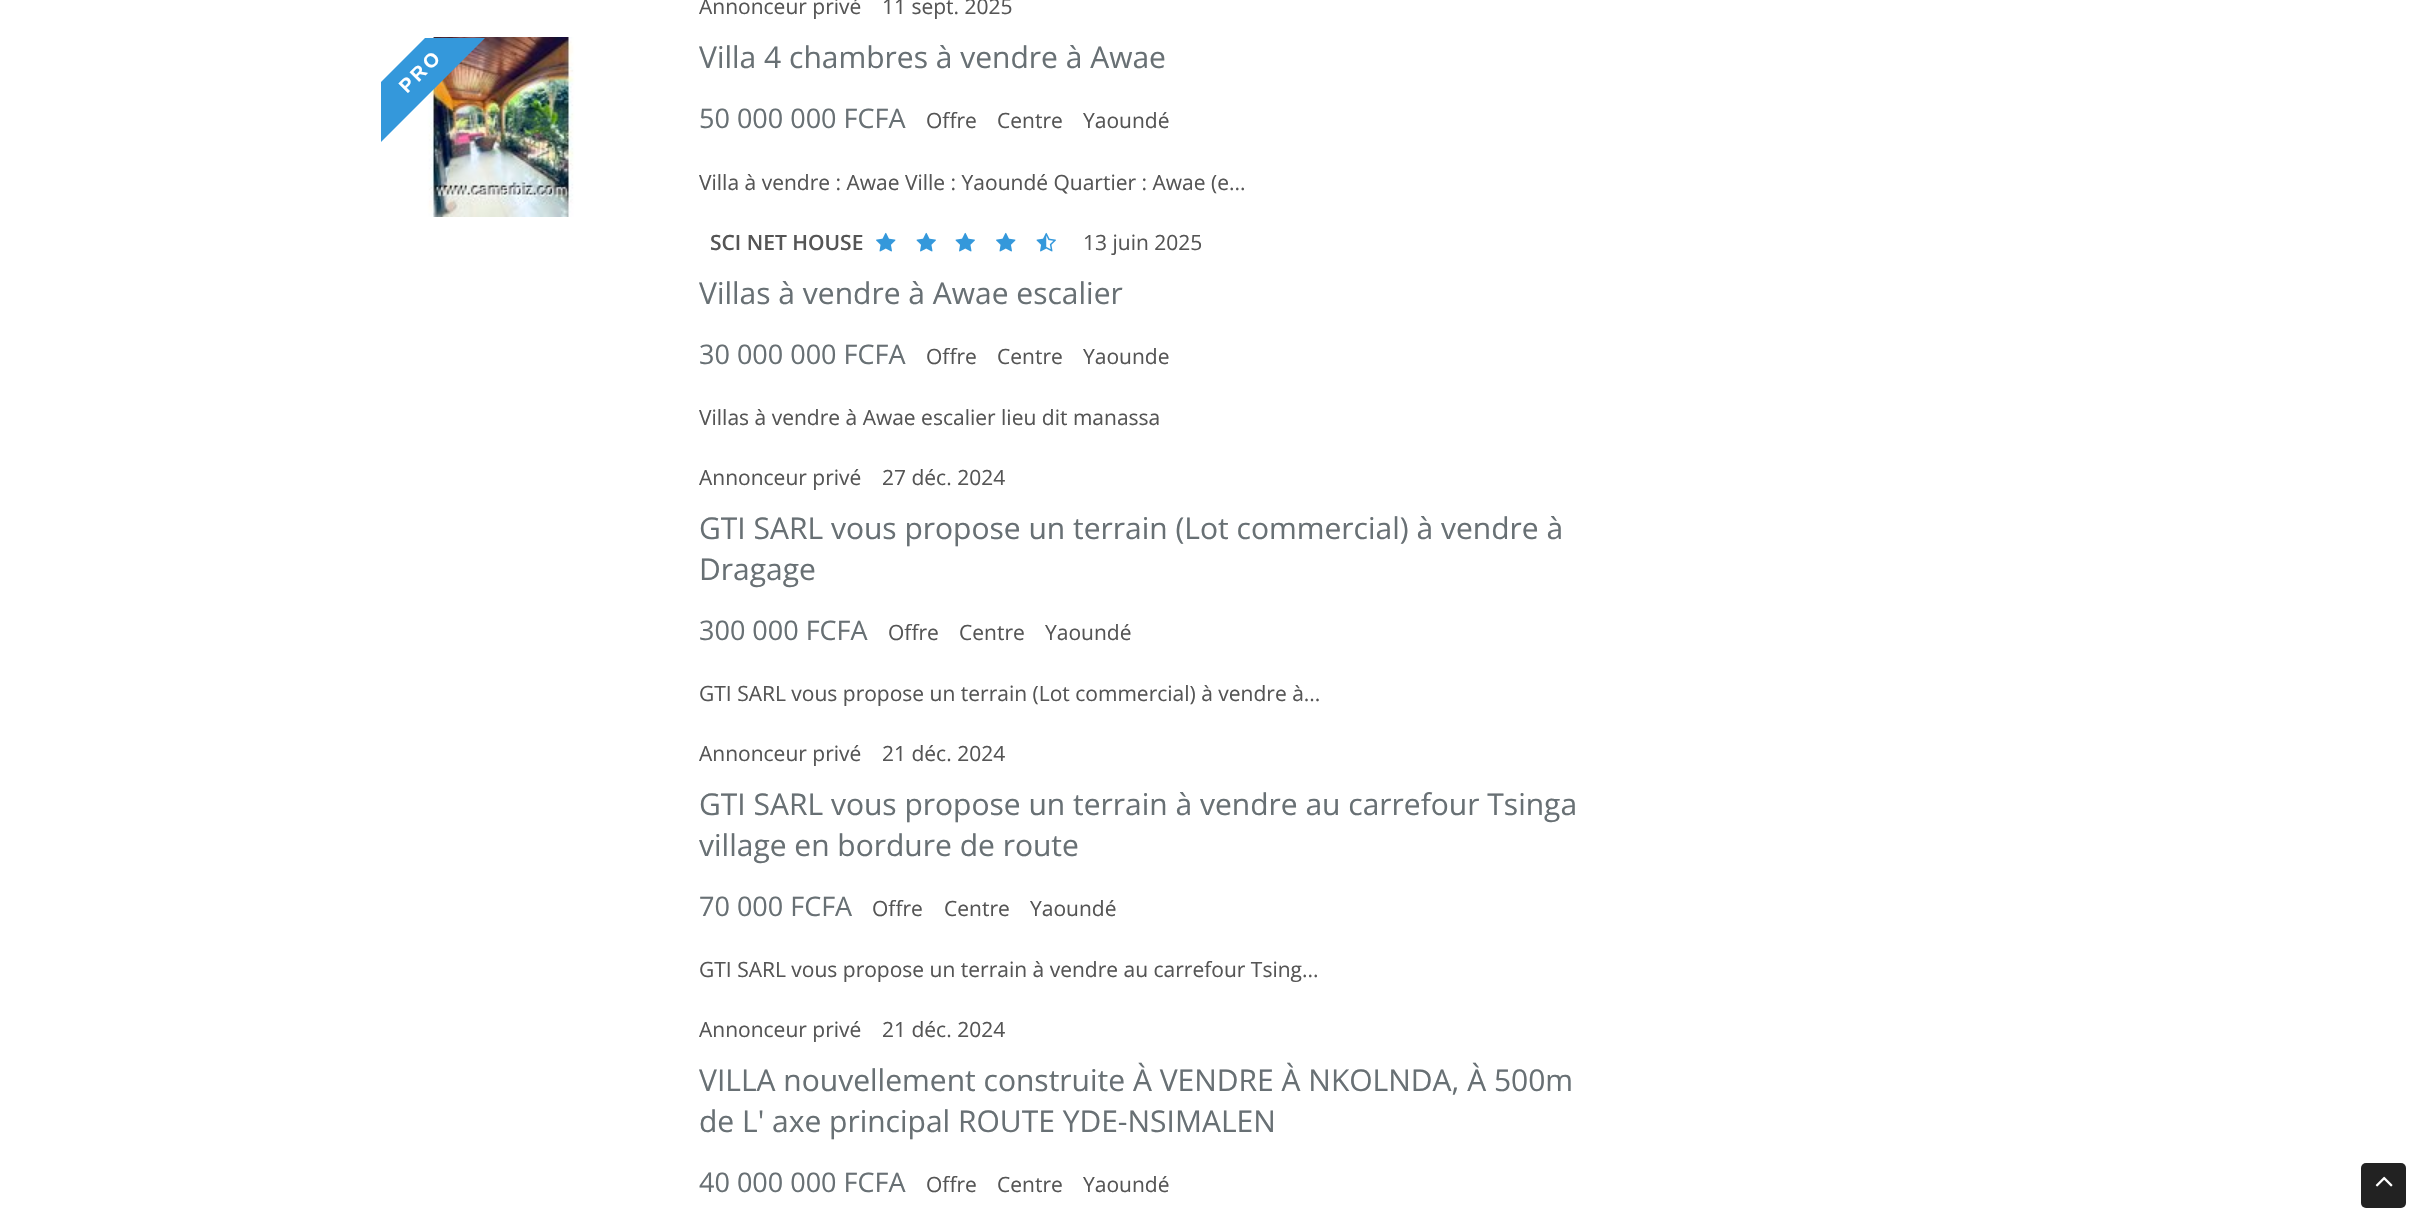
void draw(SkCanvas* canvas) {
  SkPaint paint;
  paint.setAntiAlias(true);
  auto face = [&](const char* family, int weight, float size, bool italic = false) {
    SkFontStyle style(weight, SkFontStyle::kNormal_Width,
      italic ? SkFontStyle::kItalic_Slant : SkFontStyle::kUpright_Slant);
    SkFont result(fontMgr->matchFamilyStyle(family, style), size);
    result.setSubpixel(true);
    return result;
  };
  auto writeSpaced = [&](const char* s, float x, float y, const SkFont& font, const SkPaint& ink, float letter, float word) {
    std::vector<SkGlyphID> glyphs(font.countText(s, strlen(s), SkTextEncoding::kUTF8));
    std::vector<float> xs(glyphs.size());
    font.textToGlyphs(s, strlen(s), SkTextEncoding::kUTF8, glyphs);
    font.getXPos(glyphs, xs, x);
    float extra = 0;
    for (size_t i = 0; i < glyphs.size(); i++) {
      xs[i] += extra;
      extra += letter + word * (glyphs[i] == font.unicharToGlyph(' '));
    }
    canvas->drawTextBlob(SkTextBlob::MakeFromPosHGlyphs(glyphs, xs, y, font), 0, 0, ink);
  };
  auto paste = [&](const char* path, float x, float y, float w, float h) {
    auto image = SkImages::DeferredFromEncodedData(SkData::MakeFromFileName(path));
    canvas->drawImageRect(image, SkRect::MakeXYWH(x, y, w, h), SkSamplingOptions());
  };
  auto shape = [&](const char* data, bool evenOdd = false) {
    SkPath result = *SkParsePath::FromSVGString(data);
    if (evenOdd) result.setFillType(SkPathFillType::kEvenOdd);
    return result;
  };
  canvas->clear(0xffffffff);
  paste("img/1.png", 391, 37, 230, 180);
  paint.setColor(0xff3498db);
  canvas->drawPath(shape("M485 38L381 142V82L425 38Z"), paint);
  paste("img/2.png", 876, 232, 20, 20);
  paste("img/3.png", 916, 232, 20, 20);
  paste("img/3.png", 955, 232, 20, 20);
  paste("img/2.png", 996, 232, 20, 20);
  paste("img/4.png", 1036, 232, 20, 20);
  paint.setColor(0xff222222);
  canvas->drawRoundRect(SkRect::MakeXYWH(2361, 1163, 45, 45), 5, 5, paint);
  paste("img/5.png", 2375, 1176, 18, 11);
  auto f0 = face("Open Sans", 400, 21);
  paint.setColor(0xff555555);
  canvas->drawString("Annonceur privé", 699, 14, f0, paint);
  canvas->drawString("11 sept. 2025", 882, 14, f0, paint);
  auto f1 = face("Liberation Sans", 700, 19.5f);
  paint.setColor(0xffffffff);
  canvas->save();
  canvas->rotate(-45, 407, 94);
  writeSpaced("PRO", 407, 94, f1, paint, 3, 0);
  canvas->restore();
  auto f2 = face("Open Sans", 400, 30);
  paint.setColor(0xff687074);
  canvas->drawString("Villa 4 chambres à vendre à Awae", 699, 68, f2, paint);
  auto f3 = face("Open Sans", 400, 27);
  canvas->drawString("50 000 000 FCFA", 699, 128, f3, paint);
  paint.setColor(0xff555555);
  {
    const struct { const char* s; float x, y; } items[] = {
      {"Offre", 926, 128},
      {"Centre", 997, 128},
      {"Yaoundé", 1083, 128},
      {"Villa à vendre : Awae Ville : Yaoundé Quartier : Awae (e...", 699, 190},
    };
    for (auto [s, x, y] : items) {
      canvas->drawString(s, x, y, f0, paint);
    }
  }
  auto f4 = face("Open Sans", 600, 21);
  canvas->drawString("SCI NET HOUSE", 710, 250, f4, paint);
  canvas->drawString("13 juin 2025", 1083, 250, f0, paint);
  paint.setColor(0xff687074);
  canvas->drawString("Villas à vendre à Awae escalier", 699, 304, f2, paint);
  canvas->drawString("30 000 000 FCFA", 699, 364, f3, paint);
  paint.setColor(0xff555555);
  {
    const struct { const char* s; float x, y; } items[] = {
      {"Offre", 926, 364},
      {"Centre", 997, 364},
      {"Yaounde", 1083, 364},
      {"Villas à vendre à Awae escalier lieu dit manassa", 699, 425},
      {"Annonceur privé", 699, 485},
      {"27 déc. 2024", 882, 485},
    };
    for (auto [s, x, y] : items) {
      canvas->drawString(s, x, y, f0, paint);
    }
  }
  paint.setColor(0xff687074);
  canvas->drawString("GTI SARL vous propose un terrain (Lot commercial) à vendre à", 699, 539, f2, paint);
  canvas->drawString("Dragage", 699, 580, f2, paint);
  canvas->drawString("300 000 FCFA", 699, 640, f3, paint);
  paint.setColor(0xff555555);
  {
    const struct { const char* s; float x, y; } items[] = {
      {"Offre", 888, 640},
      {"Centre", 959, 640},
      {"Yaoundé", 1045, 640},
      {"GTI SARL vous propose un terrain (Lot commercial) à vendre à...", 699, 701},
      {"Annonceur privé", 699, 761},
      {"21 déc. 2024", 882, 761},
    };
    for (auto [s, x, y] : items) {
      canvas->drawString(s, x, y, f0, paint);
    }
  }
  paint.setColor(0xff687074);
  canvas->drawString("GTI SARL vous propose un terrain à vendre au carrefour Tsinga", 699, 815, f2, paint);
  canvas->drawString("village en bordure de route", 699, 856, f2, paint);
  canvas->drawString("70 000 FCFA", 699, 916, f3, paint);
  paint.setColor(0xff555555);
  {
    const struct { const char* s; float x, y; } items[] = {
      {"Offre", 872, 916},
      {"Centre", 944, 916},
      {"Yaoundé", 1030, 916},
      {"GTI SARL vous propose un terrain à vendre au carrefour Tsing...", 699, 977},
      {"Annonceur privé", 699, 1037},
      {"21 déc. 2024", 882, 1037},
    };
    for (auto [s, x, y] : items) {
      canvas->drawString(s, x, y, f0, paint);
    }
  }
  paint.setColor(0xff687074);
  canvas->drawString("VILLA nouvellement construite À VENDRE À NKOLNDA, À 500m", 699, 1091, f2, paint);
  canvas->drawString("de L' axe principal ROUTE YDE-NSIMALEN", 699, 1132, f2, paint);
  canvas->drawString("40 000 000 FCFA", 699, 1192, f3, paint);
  paint.setColor(0xff555555);
  {
    const struct { const char* s; float x, y; } items[] = {
      {"Offre", 926, 1192},
      {"Centre", 997, 1192},
      {"Yaoundé", 1083, 1192},
    };
    for (auto [s, x, y] : items) {
      canvas->drawString(s, x, y, f0, paint);
    }
  }
}
